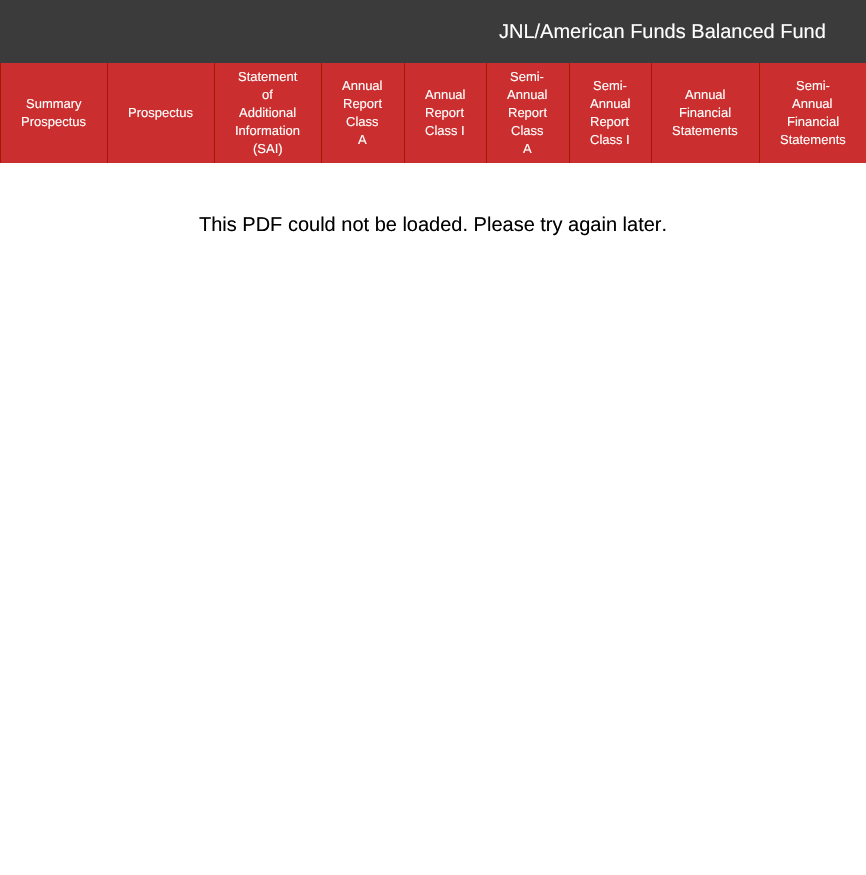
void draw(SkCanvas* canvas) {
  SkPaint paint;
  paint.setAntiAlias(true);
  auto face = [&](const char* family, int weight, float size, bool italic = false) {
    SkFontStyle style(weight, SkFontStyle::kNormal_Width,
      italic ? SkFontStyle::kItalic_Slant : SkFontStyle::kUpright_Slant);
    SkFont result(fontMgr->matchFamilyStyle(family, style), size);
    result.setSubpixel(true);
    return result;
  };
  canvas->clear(0xffffffff);
  {
    const struct { float x, y, w, h; SkColor color; } items[] = {
      {0, 0, 866, 63, 0xff3b3b3b},
      {1, 63, 865, 100, 0xffcb2e2e},
      {0, 63, 1, 100, 0xffa31906},
      {107, 63, 1, 100, 0xffa31906},
      {214, 63, 1, 100, 0xffa31906},
      {321, 63, 1, 100, 0xffa31906},
      {404, 63, 1, 100, 0xffa31906},
      {486, 63, 1, 100, 0xffa31906},
      {569, 63, 1, 100, 0xffa31906},
      {651, 63, 1, 100, 0xffa31906},
      {759, 63, 1, 100, 0xffa31906},
    };
    for (auto [x, y, w, h, color] : items) {
      paint.setColor(color);
      canvas->drawRect(SkRect::MakeXYWH(x, y, w, h), paint);
    }
  }
  auto f0 = face("Liberation Sans", 400, 20);
  paint.setColor(0xffffffff);
  canvas->drawString("JNL/American Funds Balanced Fund", 499, 38, f0, paint);
  auto f1 = face("Liberation Sans", 400, 13);
  {
    const struct { const char* s; float x, y; } items[] = {
      {"Summary", 26, 108},
      {"Prospectus", 21, 126},
      {"Prospectus", 128, 117},
      {"Statement", 238, 81},
      {"of", 262, 99},
      {"Additional", 239, 117},
      {"Information", 235, 135},
      {"(SAI)", 253, 153},
      {"Annual", 342, 90},
      {"Report", 343, 108},
      {"Class", 346, 126},
      {"A", 358, 144},
      {"Annual", 425, 99},
      {"Report", 425, 117},
      {"Class I", 425, 135},
      {"Semi-", 510, 81},
      {"Annual", 507, 99},
      {"Report", 508, 117},
      {"Class", 511, 135},
      {"A", 523, 153},
      {"Semi-", 593, 90},
      {"Annual", 590, 108},
      {"Report", 590, 126},
      {"Class I", 590, 144},
      {"Annual", 685, 99},
      {"Financial", 679, 117},
      {"Statements", 672, 135},
      {"Semi-", 796, 90},
      {"Annual", 792, 108},
      {"Financial", 787, 126},
      {"Statements", 780, 144},
    };
    for (auto [s, x, y] : items) {
      canvas->drawString(s, x, y, f1, paint);
    }
  }
  paint.setColor(0xff000000);
  canvas->drawString("This PDF could not be loaded. Please try again later.", 199, 231, f0, paint);
}
